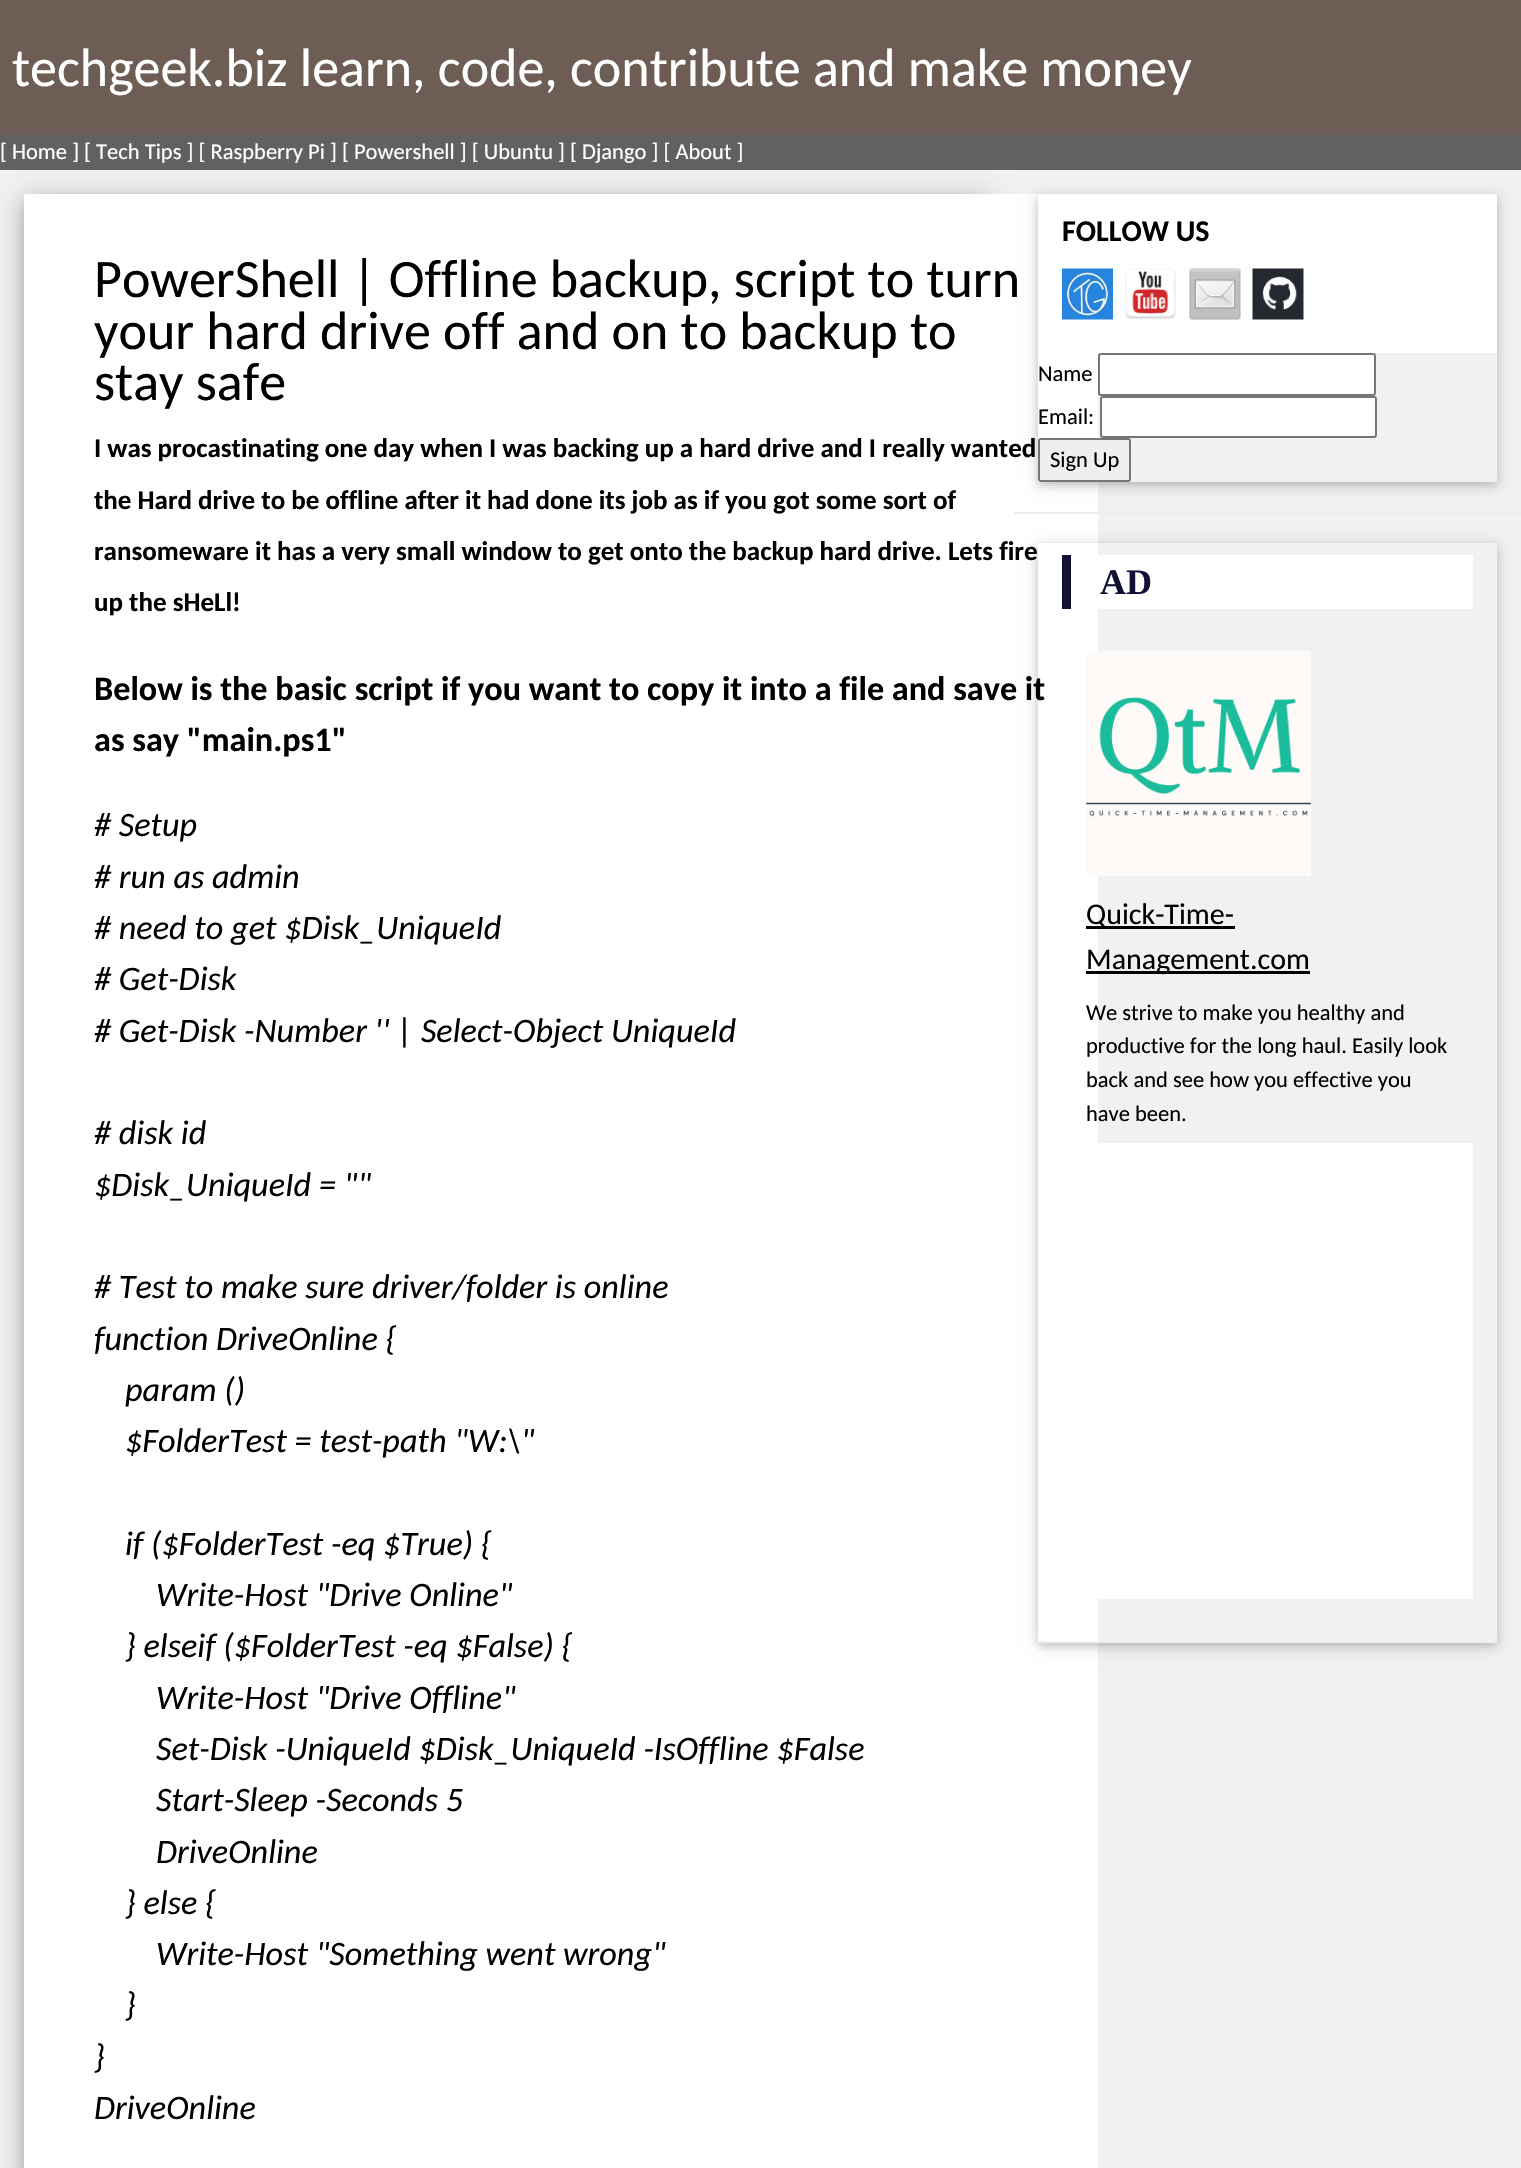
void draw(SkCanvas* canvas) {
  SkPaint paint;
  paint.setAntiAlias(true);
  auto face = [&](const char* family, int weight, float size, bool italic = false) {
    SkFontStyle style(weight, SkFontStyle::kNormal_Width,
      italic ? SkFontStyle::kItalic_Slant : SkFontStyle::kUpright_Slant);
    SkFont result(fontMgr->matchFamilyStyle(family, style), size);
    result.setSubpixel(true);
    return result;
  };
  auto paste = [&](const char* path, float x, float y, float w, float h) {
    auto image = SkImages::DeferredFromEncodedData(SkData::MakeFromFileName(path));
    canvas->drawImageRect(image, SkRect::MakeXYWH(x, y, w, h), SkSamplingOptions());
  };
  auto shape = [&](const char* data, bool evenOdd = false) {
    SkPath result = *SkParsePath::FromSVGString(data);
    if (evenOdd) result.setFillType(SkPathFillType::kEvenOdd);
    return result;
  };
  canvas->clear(0xfff1f1f1);
  paint.setColor(0xff6d5d54);
  canvas->drawRect(SkRect::MakeXYWH(0, 0, 1521, 135), paint);
  paint.setColor(0xff616161);
  canvas->drawRect(SkRect::MakeXYWH(0, 135, 1521, 35), paint);
  paint.setColor(0x30000000);
  paint.setMaskFilter(SkMaskFilter::MakeBlur(kNormal_SkBlurStyle, 15));
  canvas->drawRect(SkRect::MakeXYWH(24, 200, 966, 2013), paint);
  paint.setMaskFilter(nullptr);
  paint.setColor(0x33000000);
  paint.setMaskFilter(SkMaskFilter::MakeBlur(kNormal_SkBlurStyle, 7.5f));
  canvas->drawRect(SkRect::MakeXYWH(24, 200, 966, 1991), paint);
  paint.setMaskFilter(nullptr);
  paint.setColor(0xffffffff);
  canvas->drawRect(SkRect::MakeXYWH(24, 194, 1074, 1974), paint);
  canvas->save();
  canvas->clipPath(shape("M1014 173H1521V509H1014ZM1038 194H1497V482H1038Z", true), true);
  paint.setColor(0x1f000000);
  paint.setMaskFilter(SkMaskFilter::MakeBlur(kNormal_SkBlurStyle, 7.5f));
  canvas->drawRect(SkRect::MakeXYWH(1038, 197, 459, 288), paint);
  paint.setMaskFilter(nullptr);
  canvas->restore();
  canvas->save();
  canvas->clipPath(shape("M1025 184H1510V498H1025ZM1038 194H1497V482H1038Z", true), true);
  paint.setColor(0x29000000);
  paint.setMaskFilter(SkMaskFilter::MakeBlur(kNormal_SkBlurStyle, 4));
  canvas->drawRect(SkRect::MakeXYWH(1038, 197, 459, 288), paint);
  paint.setMaskFilter(nullptr);
  canvas->restore();
  paint.setColor(0xffffffff);
  canvas->drawRect(SkRect::MakeXYWH(1098, 194, 399, 159), paint);
  paste("img/1.png", 1062, 268, 51, 52);
  paste("img/2.png", 1125, 268, 51, 52);
  paste("img/3.png", 1189, 268, 52, 52);
  paste("img/4.png", 1252, 268, 52, 52);
  canvas->drawRoundRect(SkRect::MakeXYWH(1099, 354, 276, 41), 2, 2, paint);
  paint.setStroke(true);
  paint.setStrokeWidth(2);
  paint.setColor(0xff767676);
  canvas->drawRoundRect(SkRect::MakeXYWH(1099, 354, 276, 41), 2, 2, paint);
  paint.setStroke(false);
  paint.setColor(0xffffffff);
  canvas->drawRoundRect(SkRect::MakeXYWH(1101, 397, 275, 40), 2, 2, paint);
  paint.setStroke(true);
  paint.setColor(0xff767676);
  canvas->drawRoundRect(SkRect::MakeXYWH(1101, 397, 275, 40), 2, 2, paint);
  paint.setStroke(false);
  paint.setColor(0xffefefef);
  canvas->drawRoundRect(SkRect::MakeXYWH(1039, 439, 91, 42), 2, 2, paint);
  paint.setStroke(true);
  paint.setColor(0xff767676);
  canvas->drawRoundRect(SkRect::MakeXYWH(1039, 439, 91, 42), 2, 2, paint);
  paint.setStroke(false);
  paint.setColor(0xffeeeeee);
  canvas->drawRect(SkRect::MakeXYWH(1014, 512, 507, 2), paint);
  canvas->save();
  canvas->clipPath(shape("M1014 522H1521V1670H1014ZM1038 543H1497V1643H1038Z", true), true);
  paint.setColor(0x1f000000);
  paint.setMaskFilter(SkMaskFilter::MakeBlur(kNormal_SkBlurStyle, 7.5f));
  canvas->drawRect(SkRect::MakeXYWH(1038, 546, 459, 1100), paint);
  paint.setMaskFilter(nullptr);
  canvas->restore();
  canvas->save();
  canvas->clipPath(shape("M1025 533H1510V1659H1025ZM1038 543H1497V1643H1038Z", true), true);
  paint.setColor(0x29000000);
  paint.setMaskFilter(SkMaskFilter::MakeBlur(kNormal_SkBlurStyle, 4));
  canvas->drawRect(SkRect::MakeXYWH(1038, 546, 459, 1100), paint);
  paint.setMaskFilter(nullptr);
  canvas->restore();
  paint.setColor(0xffffffff);
  canvas->drawRect(SkRect::MakeXYWH(1098, 555, 375, 54), paint);
  paint.setColor(0xff111133);
  canvas->drawRect(SkRect::MakeXYWH(1062, 555, 9, 54), paint);
  paste("img/5.png", 1086, 651, 225, 225);
  {
    const struct { float x, y, w, h; SkColor color; } items[] = {
      {1086, 926, 149, 3, 0xff000000},
      {1086, 971, 224, 3, 0xff000000},
      {1098, 1143, 375, 456, 0xffffffff},
      {1038, 1641, 459, 2, 0xffeeeeee},
    };
    for (auto [x, y, w, h, color] : items) {
      paint.setColor(color);
      canvas->drawRect(SkRect::MakeXYWH(x, y, w, h), paint);
    }
  }
  auto f0 = face("Carlito", 400, 54);
  paint.setColor(0xffffffff);
  canvas->drawString("techgeek.biz learn, code, contribute and make money", 12, 86, f0, paint);
  auto f1 = face("Carlito", 400, 22.5f);
  canvas->drawString("[ Home ] [ Tech Tips ] [ Raspberry Pi ] [ Powershell ] [ Ubuntu ] [ Django ] [ About ]", 0, 159, f1, paint);
  paint.setColor(0xff000000);
  {
    const struct { const char* s; float x, y; } items[] = {
      {"PowerShell | Offline backup, script to turn", 94, 297},
      {"your hard drive off and on to backup to", 94, 349},
      {"stay safe", 94, 400},
    };
    for (auto [s, x, y] : items) {
      canvas->drawString(s, x, y, f0, paint);
    }
  }
  auto f2 = face("Carlito", 700, 27);
  {
    const struct { const char* s; float x, y; } items[] = {
      {"I was procastinating one day when I was backing up a hard drive and I really wanted", 94, 457},
      {"the Hard drive to be offline after it had done its job as if you got some sort of", 94, 509},
      {"ransomeware it has a very small window to get onto the backup hard drive. Lets fire", 94, 560},
      {"up the sHeLl!", 94, 611},
    };
    for (auto [s, x, y] : items) {
      canvas->drawString(s, x, y, f2, paint);
    }
  }
  auto f3 = face("Carlito", 700, 34.2f);
  canvas->drawString("Below is the basic script if you want to copy it into a file and save it", 94, 700, f3, paint);
  canvas->drawString("as say \"main.ps1\"", 94, 751, f3, paint);
  auto f4 = face("Carlito", 400, 34.2f, true);
  {
    const struct { const char* s; float x, y; } items[] = {
      {"# Setup", 94, 836},
      {"# run as admin", 94, 888},
      {"# need to get $Disk_UniqueId", 94, 939},
      {"# Get-Disk", 94, 990},
      {"# Get-Disk -Number '' | Select-Object UniqueId", 94, 1042},
      {"# disk id", 94, 1144},
      {"$Disk_UniqueId = \"\"", 94, 1196},
      {"# Test to make sure driver/folder is online", 94, 1298},
      {"function DriveOnline {", 94, 1350},
      {"param ()", 125, 1401},
      {"$FolderTest = test-path \"W:\\\"", 125, 1452},
      {"if ($FolderTest -eq $True) {", 125, 1555},
      {"Write-Host \"Drive Online\"", 156, 1606},
      {"} elseif ($FolderTest -eq $False) {", 125, 1657},
      {"Write-Host \"Drive Offline\"", 156, 1709},
      {"Set-Disk -UniqueId $Disk_UniqueId -IsOffline $False", 156, 1760},
      {"Start-Sleep -Seconds 5", 156, 1811},
      {"DriveOnline", 156, 1863},
      {"} else {", 125, 1914},
      {"Write-Host \"Something went wrong\"", 156, 1965},
      {"}", 125, 2016},
      {"}", 94, 2068},
      {"DriveOnline", 94, 2119},
    };
    for (auto [s, x, y] : items) {
      canvas->drawString(s, x, y, f4, paint);
    }
  }
  auto f5 = face("Carlito", 700, 30);
  canvas->drawString("FOLLOW US", 1062, 241, f5, paint);
  {
    const struct { const char* s; float x, y; } items[] = {
      {"Name", 1038, 381},
      {"Email:", 1038, 424},
      {"Sign Up", 1050, 467},
    };
    for (auto [s, x, y] : items) {
      canvas->drawString(s, x, y, f1, paint);
    }
  }
  auto f6 = face("Liberation Serif", 700, 36);
  paint.setColor(0xff111133);
  canvas->drawString("AD", 1100, 594, f6, paint);
  auto f7 = face("Carlito", 400, 30);
  paint.setColor(0xff000000);
  canvas->drawString("Quick-Time-", 1086, 924, f7, paint);
  canvas->drawString("Management.com", 1086, 969, f7, paint);
  {
    const struct { const char* s; float x, y; } items[] = {
      {"We strive to make you healthy and", 1086, 1020},
      {"productive for the long haul. Easily look", 1086, 1053},
      {"back and see how you effective you", 1086, 1087},
      {"have been.", 1086, 1121},
    };
    for (auto [s, x, y] : items) {
      canvas->drawString(s, x, y, f1, paint);
    }
  }
}
